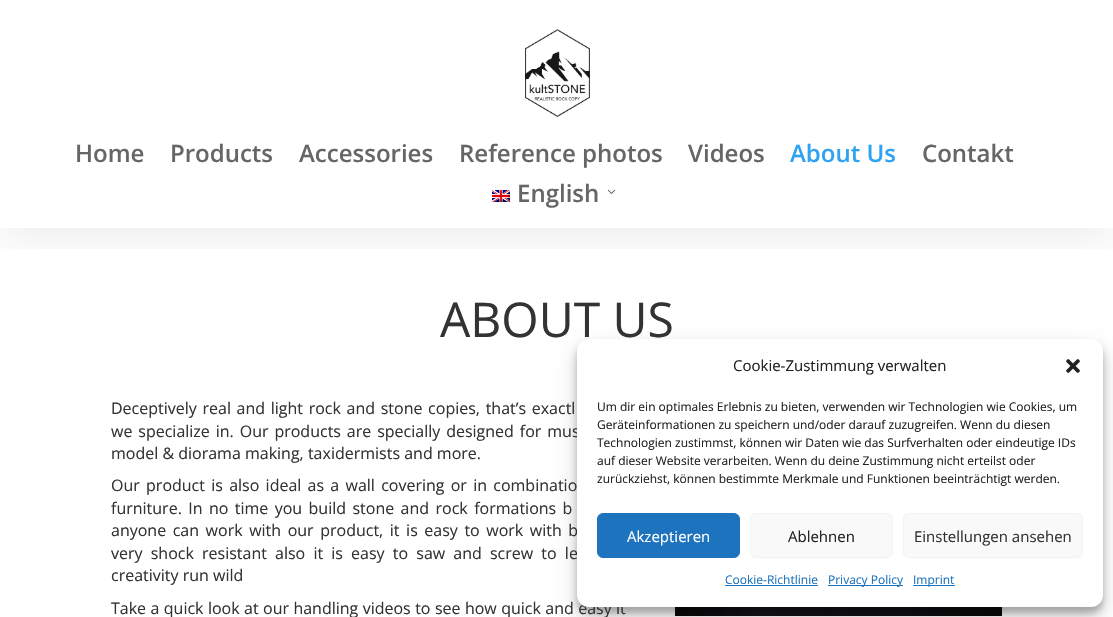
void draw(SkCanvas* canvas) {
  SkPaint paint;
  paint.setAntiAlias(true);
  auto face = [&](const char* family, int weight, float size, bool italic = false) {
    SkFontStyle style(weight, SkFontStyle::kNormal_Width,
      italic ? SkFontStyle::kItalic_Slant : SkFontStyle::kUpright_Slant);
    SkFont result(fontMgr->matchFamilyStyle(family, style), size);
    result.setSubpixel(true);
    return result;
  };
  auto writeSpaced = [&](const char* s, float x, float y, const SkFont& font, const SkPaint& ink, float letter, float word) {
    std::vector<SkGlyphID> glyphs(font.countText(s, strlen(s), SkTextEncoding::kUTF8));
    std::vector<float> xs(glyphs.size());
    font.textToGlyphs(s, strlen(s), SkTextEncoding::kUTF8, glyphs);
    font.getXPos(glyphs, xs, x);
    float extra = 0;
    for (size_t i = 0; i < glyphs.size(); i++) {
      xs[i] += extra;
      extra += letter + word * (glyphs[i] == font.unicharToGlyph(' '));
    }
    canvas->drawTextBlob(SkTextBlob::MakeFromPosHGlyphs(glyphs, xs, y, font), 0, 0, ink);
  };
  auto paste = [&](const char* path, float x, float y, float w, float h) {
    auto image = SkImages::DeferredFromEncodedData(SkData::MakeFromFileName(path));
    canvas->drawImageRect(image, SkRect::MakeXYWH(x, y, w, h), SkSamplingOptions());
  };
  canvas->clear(0xffffffff);
  canvas->save();
  canvas->clipRect(SkRect::MakeXYWH(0, 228, 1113, 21));
  paint.setColor(0x1a000000);
  paint.setMaskFilter(SkMaskFilter::MakeBlur(kNormal_SkBlurStyle, 25));
  canvas->drawRect(SkRect::MakeXYWH(0, 0, 1113, 228), paint);
  paint.setMaskFilter(nullptr);
  canvas->restore();
  paste("img/1.png", 525, 29, 65, 88);
  paste("img/2.png", 492, 190, 18, 12);
  paste("img/3.png", 607, 189, 9, 5);
  paste("img/4.png", 675, 607, 327, 9);
  paint.setColor(0x3b000000);
  paint.setMaskFilter(SkMaskFilter::MakeBlur(kNormal_SkBlurStyle, 3));
  canvas->drawRoundRect(SkRect::MakeXYWH(577, 345, 526, 268), 12, 12, paint);
  paint.setMaskFilter(nullptr);
  paint.setColor(0x30000000);
  paint.setMaskFilter(SkMaskFilter::MakeBlur(kNormal_SkBlurStyle, 10));
  canvas->drawRoundRect(SkRect::MakeXYWH(577, 349, 526, 268), 12, 12, paint);
  paint.setMaskFilter(nullptr);
  auto f0 = face("Open Sans", 600, 24);
  paint.setColor(0xff666666);
  {
    const struct { const char* s; float x, y; } items[] = {
      {"Home", 75, 162},
      {"Products", 170, 162},
      {"Accessories", 299, 162},
      {"Reference photos", 459, 162},
      {"Videos", 688, 162},
    };
    for (auto [s, x, y] : items) {
      canvas->drawString(s, x, y, f0, paint);
    }
  }
  paint.setColor(0xff2ea3f2);
  canvas->drawString("About Us", 790, 162, f0, paint);
  paint.setColor(0xff666666);
  canvas->drawString("Contakt", 922, 162, f0, paint);
  canvas->drawString("English", 517, 202, f0, paint);
  auto f1 = face("Open Sans", 400, 48);
  paint.setColor(0xff333333);
  canvas->drawString("ABOUT US", 440, 337, f1, paint);
  auto f2 = face("Open Sans", 400, 16);
  writeSpaced("Deceptively real and light rock and stone copies, that’s exactl", 111, 414, f2, paint, 0, 1.5f);
  writeSpaced("we specialize in. Our products are specially designed for mus", 111, 437, f2, paint, 0, 1.75f);
  canvas->drawString("model & diorama making, taxidermists and more.", 111, 459, f2, paint);
  writeSpaced("Our product is also ideal as a wall covering or in combinatio", 111, 491, f2, paint, 0, 2.1f);
  writeSpaced("furniture. In no time you build stone and rock formations b", 111, 514, f2, paint, 0, 2.25f);
  writeSpaced("anyone can work with our product, it is easy to work with b", 111, 536, f2, paint, 0, 2.4f);
  writeSpaced("very shock resistant also it is easy to saw and screw to le", 111, 559, f2, paint, 0, 4);
  canvas->drawString("creativity run wild", 111, 581, f2, paint);
  writeSpaced("Take a quick look at our handling videos to see how quick and easy it", 111, 614, f2, paint, 0, 0.25f);
  paint.setColor(0xffffffff);
  canvas->drawRoundRect(SkRect::MakeXYWH(577, 339, 526, 268), 12, 12, paint);
  auto f3 = face("Open Sans", 400, 15);
  paint.setColor(0xff222222);
  canvas->drawString("Cookie-Zustimmung verwalten", 733, 371, f3, paint);
  paste("img/5.png", 1066, 359, 14, 14);
  auto f4 = face("Open Sans", 400, 12);
  {
    const struct { const char* s; float x, y; } items[] = {
      {"Um dir ein optimales Erlebnis zu bieten, verwenden wir Technologien wie Cookies, um", 597, 411},
      {"Geräteinformationen zu speichern und/oder darauf zuzugreifen. Wenn du diesen", 597, 429},
      {"Technologien zustimmst, können wir Daten wie das Surfverhalten oder eindeutige IDs", 597, 447},
      {"auf dieser Website verarbeiten. Wenn du deine Zustimmung nicht erteilst oder", 597, 465},
      {"zurückziehst, können bestimmte Merkmale und Funktionen beeinträchtigt werden.", 597, 483},
    };
    for (auto [s, x, y] : items) {
      canvas->drawString(s, x, y, f4, paint);
    }
  }
  paint.setColor(0xff1e73be);
  canvas->drawRoundRect(SkRect::MakeXYWH(597.5f, 513.5f, 142, 44), 5.5f, 5.5f, paint);
  paint.setStroke(true);
  paint.setStrokeWidth(1);
  canvas->drawRoundRect(SkRect::MakeXYWH(597.5f, 513.5f, 142, 44), 5.5f, 5.5f, paint);
  paint.setStroke(false);
  paint.setColor(0xffffffff);
  canvas->drawString("Akzeptieren", 627, 542, f3, paint);
  paint.setColor(0xfff9f9f9);
  canvas->drawRoundRect(SkRect::MakeXYWH(750.5f, 513.5f, 142, 44), 5.5f, 5.5f, paint);
  paint.setStroke(true);
  paint.setColor(0xfff2f2f2);
  canvas->drawRoundRect(SkRect::MakeXYWH(750.5f, 513.5f, 142, 44), 5.5f, 5.5f, paint);
  paint.setStroke(false);
  paint.setColor(0xff222222);
  canvas->drawString("Ablehnen", 788, 542, f3, paint);
  paint.setColor(0xfff9f9f9);
  canvas->drawRoundRect(SkRect::MakeXYWH(903.5f, 513.5f, 179, 44), 5.5f, 5.5f, paint);
  paint.setStroke(true);
  paint.setColor(0xfff2f2f2);
  canvas->drawRoundRect(SkRect::MakeXYWH(903.5f, 513.5f, 179, 44), 5.5f, 5.5f, paint);
  paint.setStroke(false);
  paint.setColor(0xff333333);
  canvas->drawString("Einstellungen ansehen", 914, 542, f3, paint);
  paint.setColor(0xff1e73be);
  canvas->drawString("Cookie-Richtlinie", 725, 584, f4, paint);
  canvas->drawRect(SkRect::MakeXYWH(725, 585, 93, 1), paint);
  canvas->drawRect(SkRect::MakeXYWH(828, 585, 75, 1), paint);
  canvas->drawString("Privacy Policy", 828, 584, f4, paint);
  canvas->drawRect(SkRect::MakeXYWH(913, 585, 42, 1), paint);
  canvas->drawString("Imprint", 913, 584, f4, paint);
}
